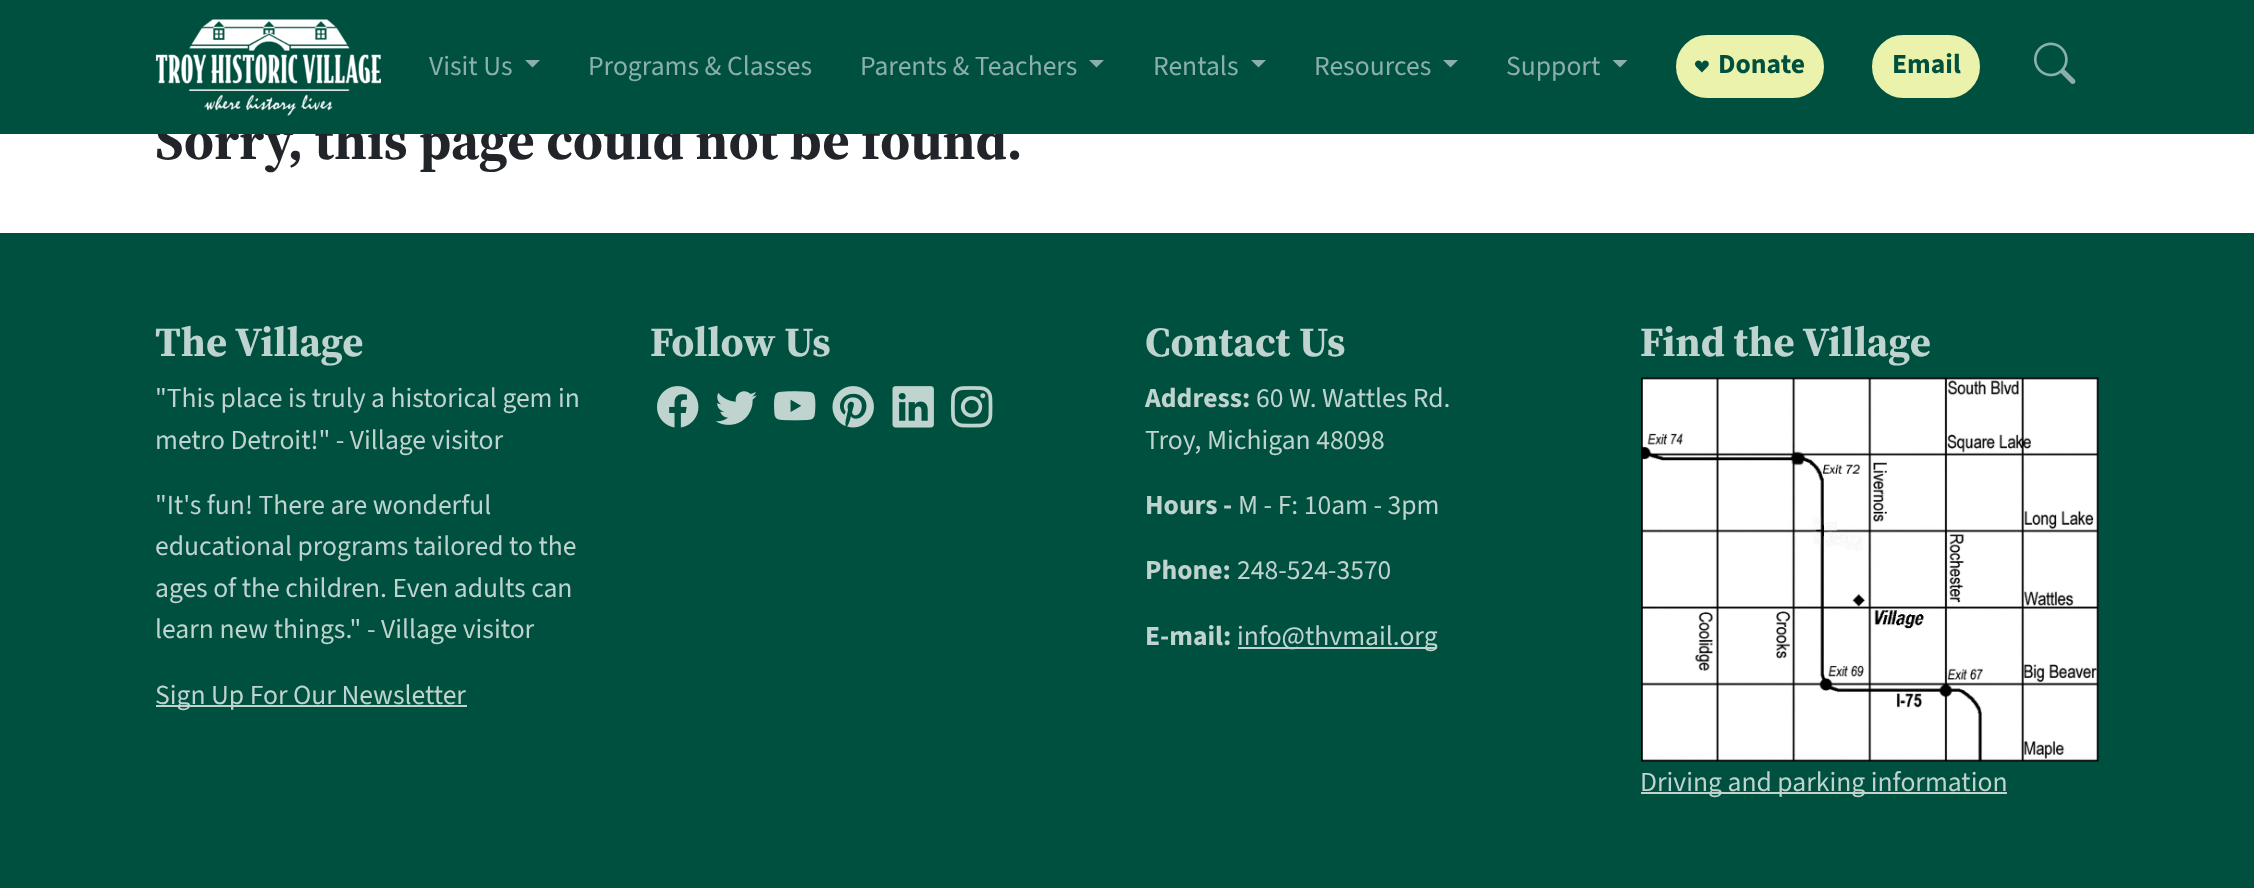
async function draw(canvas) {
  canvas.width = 2254;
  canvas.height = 888;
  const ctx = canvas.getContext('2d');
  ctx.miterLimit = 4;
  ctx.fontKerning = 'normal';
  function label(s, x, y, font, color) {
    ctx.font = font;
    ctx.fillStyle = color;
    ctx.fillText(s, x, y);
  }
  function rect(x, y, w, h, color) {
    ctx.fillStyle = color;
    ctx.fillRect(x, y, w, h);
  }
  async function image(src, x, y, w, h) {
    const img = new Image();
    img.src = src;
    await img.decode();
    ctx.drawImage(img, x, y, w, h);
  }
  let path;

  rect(0, 0, 2254, 888, '#fff');
  label('Sorry, this page could not be found.', 155, 159, 'bold 55.25px "Source Serif 4"', '#212529');
  rect(0, 0, 2254, 134, '#005040');
  await image('assets/img1.png', 155, 19, 226, 97);
  label('Visit Us', 429, 75, '27.6px "Source Sans 3"', '#8cb0a9');
  path = new Path2D('M525 60H540L532.5 67.5Z');
  ctx.fill(path);
  label('Programs & Classes', 588, 75, '27.6px "Source Sans 3"', '#8cb0a9');
  label('Parents & Teachers', 860, 75, '27.6px "Source Sans 3"', '#8cb0a9');
  path = new Path2D('M1089 60H1104L1096.5 67.5Z');
  ctx.fill(path);
  label('Rentals', 1153, 75, '27.6px "Source Sans 3"', '#8cb0a9');
  path = new Path2D('M1251 60H1266L1258.5 67.5Z');
  ctx.fill(path);
  label('Resources', 1314, 75, '27.6px "Source Sans 3"', '#8cb0a9');
  path = new Path2D('M1443 60H1458L1450.5 67.5Z');
  ctx.fill(path);
  label('Support', 1506, 75, '27.6px "Source Sans 3"', '#8cb0a9');
  path = new Path2D('M1612.5 60H1627.5L1620 67.5Z');
  ctx.fill(path);
  ctx.fillStyle = '#eaf2ac';
  ctx.beginPath();
  ctx.roundRect(1677, 36, 146, 61, 30.5);
  ctx.fill();
  ctx.strokeStyle = '#eaf2ac';
  ctx.lineWidth = 2;
  ctx.stroke();
  await image('assets/img2.png', 1695, 60, 14, 13);
  label('Donate', 1718, 73, 'bold 27.6px "Source Sans 3"', '#005040');
  ctx.fillStyle = '#eaf2ac';
  ctx.beginPath();
  ctx.roundRect(1873, 36, 106, 61, 30.5);
  ctx.fill();
  ctx.stroke();
  label('Email', 1892, 73, 'bold 27.6px "Source Sans 3"', '#005040');
  await image('assets/img3.png', 2034, 42, 42, 42);
  rect(0, 233, 2254, 655, '#005040');
  label('The Village', 155, 356, 'bold 41.5px "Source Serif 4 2"', '#bfd3cf');
  label('"This place is truly a historical gem in', 155, 407, '27.6px "Source Sans 3"', '#bfd3cf');
  label('metro Detroit!" - Village visitor', 155, 449, '27.6px "Source Sans 3"', '#bfd3cf');
  label('"It\'s fun! There are wonderful', 155, 514, '27.6px "Source Sans 3"', '#bfd3cf');
  label('educational programs tailored to the', 155, 555, '27.6px "Source Sans 3"', '#bfd3cf');
  label('ages of the children. Even adults can', 155, 597, '27.6px "Source Sans 3"', '#bfd3cf');
  label('learn new things." - Village visitor', 155, 638, '27.6px "Source Sans 3"', '#bfd3cf');
  rect(156, 705, 311, 2, '#bfd3cf');
  label('Sign Up For Our Newsletter', 155, 704, '27.6px "Source Sans 3"', '#bfd3cf');
  label('Follow Us', 650, 356, 'bold 41.5px "Source Serif 4 2"', '#bfd3cf');
  await image('assets/img4.png', 657, 386, 42, 42);
  await image('assets/img5.png', 715, 391, 42, 34);
  await image('assets/img6.png', 774, 391, 42, 30);
  await image('assets/img7.png', 832, 386, 42, 42);
  await image('assets/img8.png', 892, 386, 42, 42);
  await image('assets/img9.png', 951, 386, 42, 42);
  label('Contact Us', 1145, 356, 'bold 41.5px "Source Serif 4 2"', '#bfd3cf');
  label('Address:', 1145, 407, 'bold 27.6px "Source Sans 3"', '#bfd3cf');
  label('60 W. Wattles Rd.', 1256, 407, '27.6px "Source Sans 3"', '#bfd3cf');
  label('Troy, Michigan 48098', 1145, 449, '27.6px "Source Sans 3"', '#bfd3cf');
  label('Hours -', 1145, 514, 'bold 27.6px "Source Sans 3"', '#bfd3cf');
  label('M - F: 10am - 3pm', 1238, 514, '27.6px "Source Sans 3"', '#bfd3cf');
  label('Phone:', 1145, 579, 'bold 27.6px "Source Sans 3"', '#bfd3cf');
  label('248-524-3570', 1237, 579, '27.6px "Source Sans 3"', '#bfd3cf');
  label('E-mail:', 1145, 645, 'bold 27.6px "Source Sans 3"', '#bfd3cf');
  rect(1238, 647, 199, 2, '#bfd3cf');
  label('info@thvmail.org', 1237, 645, '27.6px "Source Sans 3"', '#bfd3cf');
  label('Find the Village', 1640, 356, 'bold 41.5px "Source Serif 4 2"', '#bfd3cf');
  await image('assets/img10.png', 1641, 377, 458, 385);
  rect(1641, 792, 366, 2, '#bfd3cf');
  label('Driving and parking information', 1640, 791, '27.6px "Source Sans 3"', '#bfd3cf');
}

draw(document.querySelector('canvas'));
